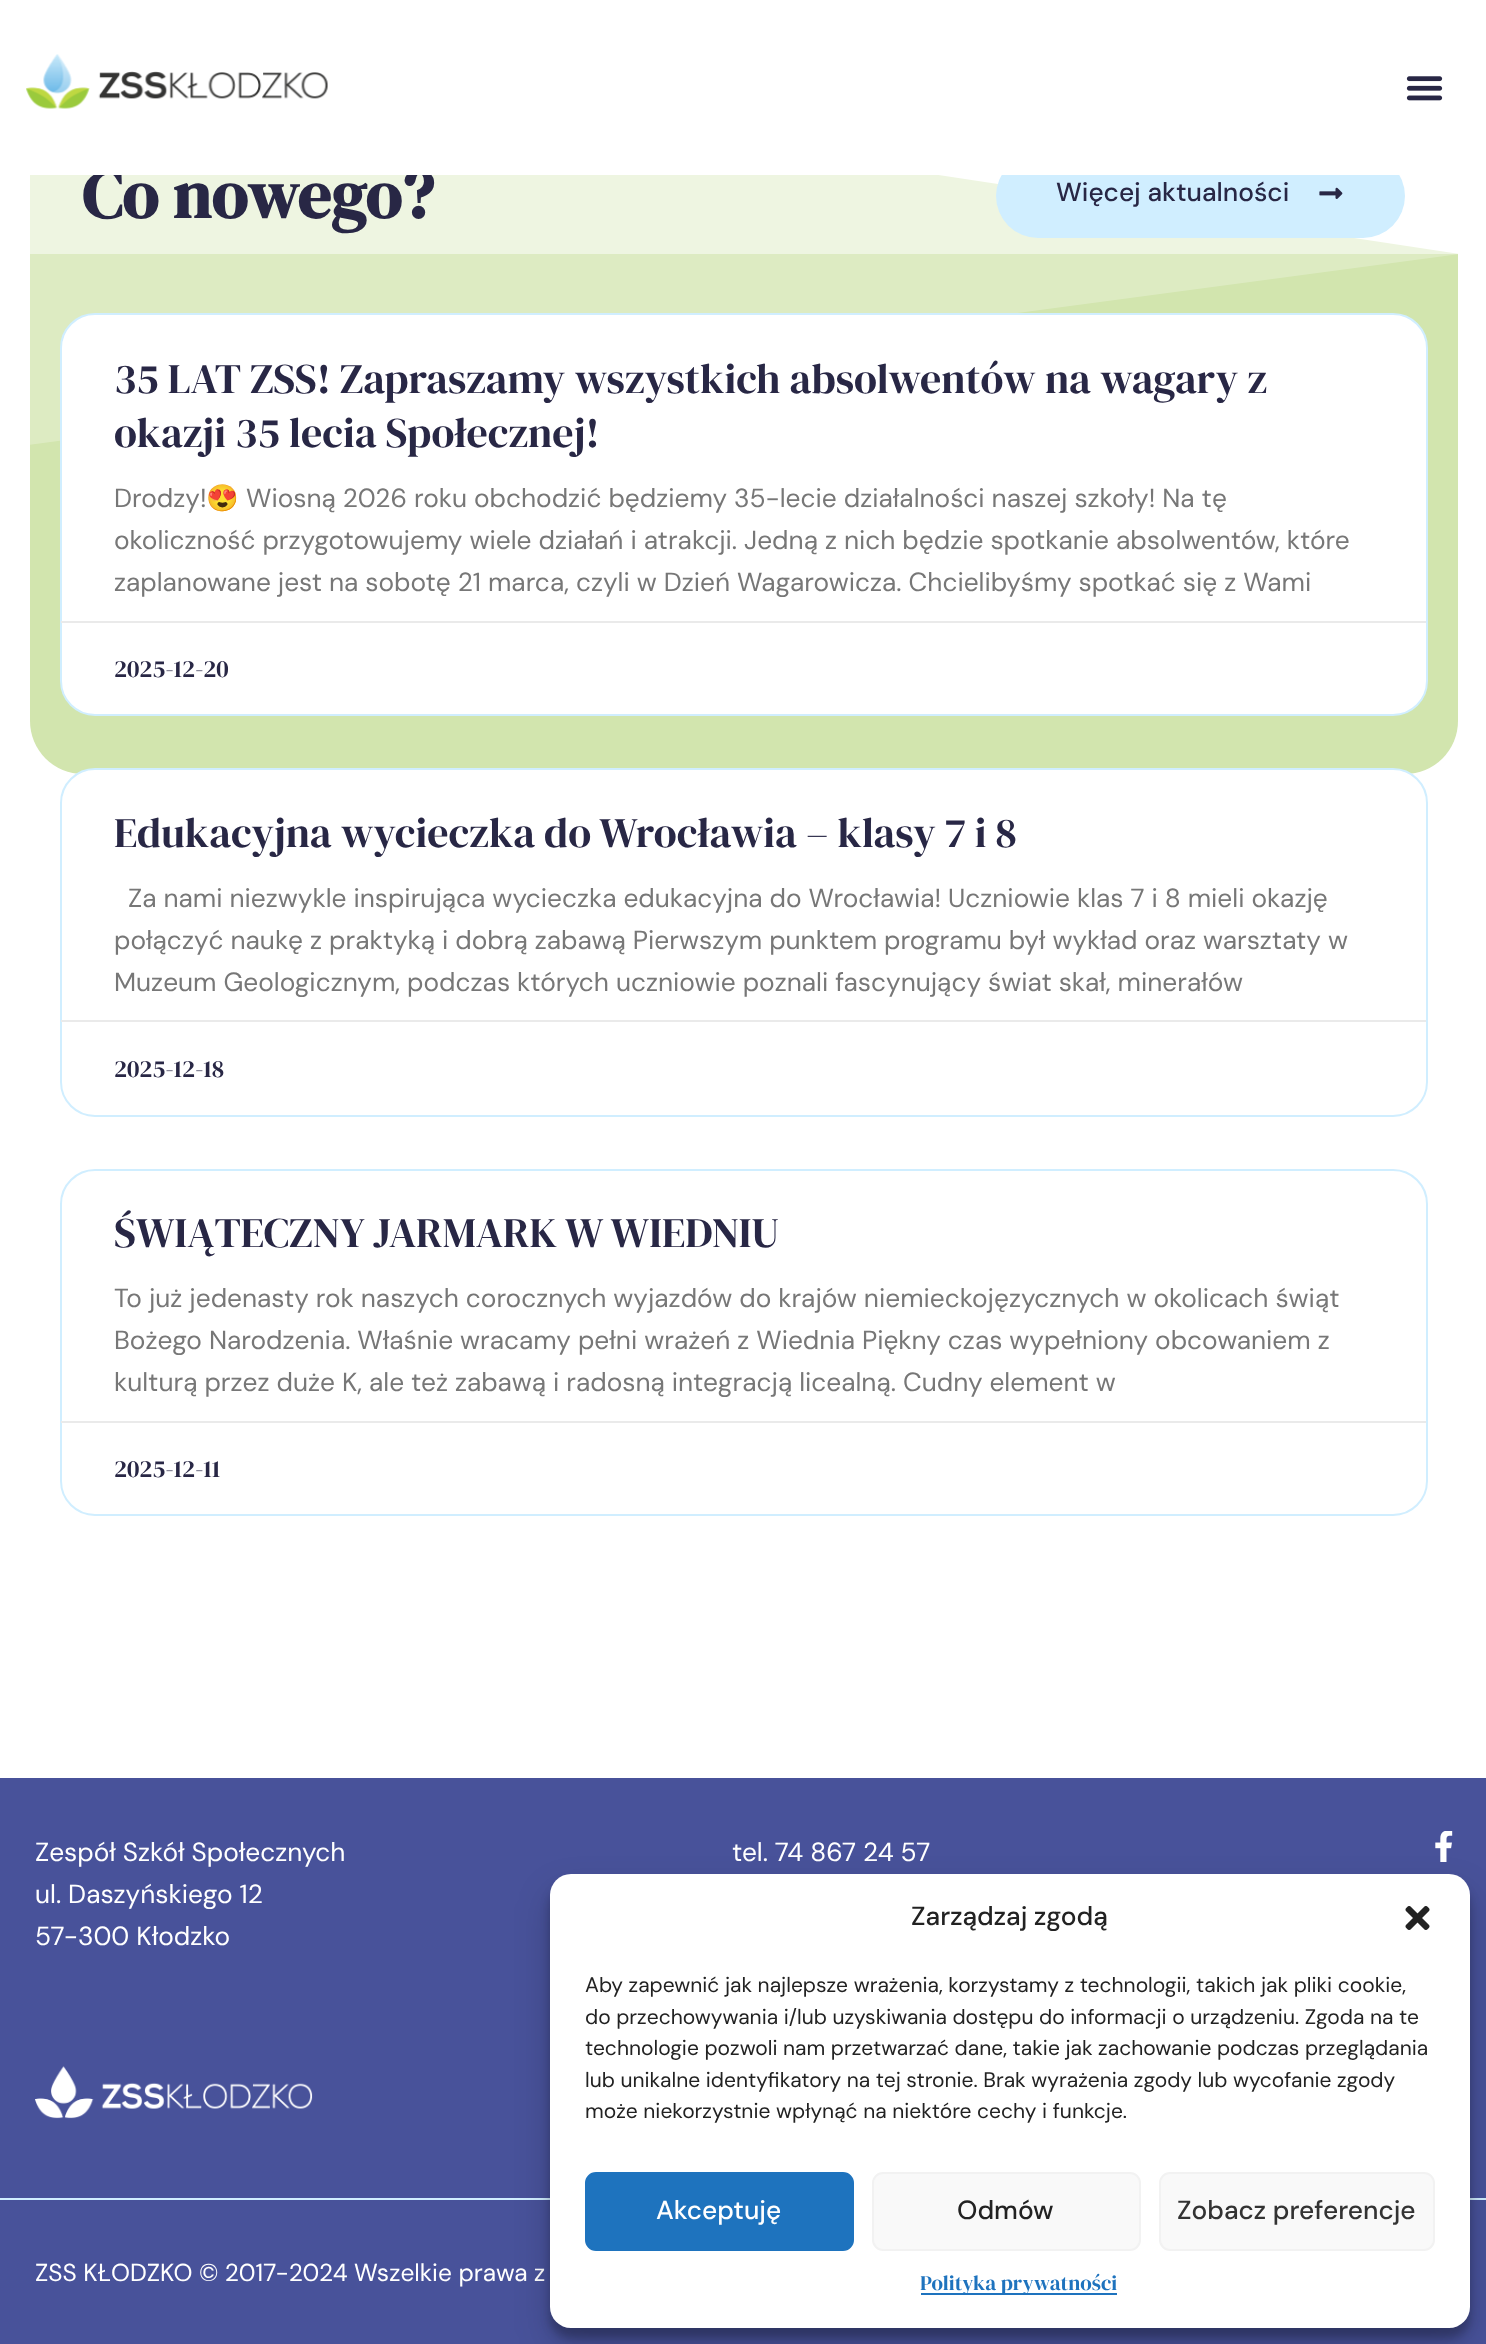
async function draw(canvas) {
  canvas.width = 1486;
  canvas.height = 2344;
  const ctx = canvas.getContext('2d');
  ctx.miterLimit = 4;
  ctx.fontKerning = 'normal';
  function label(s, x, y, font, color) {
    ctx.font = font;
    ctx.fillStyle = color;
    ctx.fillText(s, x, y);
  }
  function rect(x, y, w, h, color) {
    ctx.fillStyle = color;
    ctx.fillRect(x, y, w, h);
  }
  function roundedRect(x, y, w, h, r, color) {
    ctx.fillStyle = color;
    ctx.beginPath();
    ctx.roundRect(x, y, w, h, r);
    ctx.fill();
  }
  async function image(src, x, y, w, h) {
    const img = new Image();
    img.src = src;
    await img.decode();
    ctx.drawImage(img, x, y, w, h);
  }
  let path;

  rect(0, 0, 1486, 2344, '#fff');
  roundedRect(30, 39, 1428, 735, 53, '#d2e5ae');
  ctx.save();
  ctx.beginPath();
  ctx.rect(30, 37, 1428, 411);
  ctx.clip();
  ctx.fillStyle = '#fff';
  path = new Path2D('M29 37H1459V254Z');
  ctx.fill(path);
  ctx.restore();
  rect(30, 175, 1428, 79, '#ffffff80');
  ctx.save();
  ctx.beginPath();
  ctx.rect(30, 37, 1428, 411);
  ctx.clip();
  ctx.fillStyle = '#ffffff40';
  path = new Path2D('M1459 37H29V445L1459 254Z');
  ctx.fill(path);
  ctx.restore();
  label('Co nowego?', 82, 218, 'bold 66.5px DM Serif Display', '#282745');
  roundedRect(996, 154, 409, 84, 42, '#d0eeff');
  rect(30, 42, 1370, 133, '#fff');
  await image('assets/img1.png', 26, 54, 302, 55);
  await image('assets/img2.png', 1406, 76, 37, 25);
  label('Więcej aktualności', 1056, 201, '500 26.25px DM Sans', '#282745');
  await image('assets/img3.png', 1319, 187, 24, 12);
  ctx.fillStyle = '#fff';
  ctx.beginPath();
  ctx.roundRect(61, 314, 1366, 401, 34);
  ctx.fill();
  ctx.strokeStyle = '#d0eeff';
  ctx.lineWidth = 2;
  ctx.stroke();
  label('35 LAT ZSS! Zapraszamy wszystkich absolwentów na wagary z', 114, 393, '42px DM Serif Display', '#282745');
  label('okazji 35 lecia Społecznej!', 114, 447, '42px DM Serif Display', '#282745');
  label('Drodzy!', 114, 507, '26.25px DM Sans', '#777');
  label('😍', 206, 507, '26.25px Noto Color Emoji', '#777');
  label('Wiosną 2026 roku obchodzić będziemy 35-lecie działalności naszej szkoły! Na tę', 246, 507, '26.25px DM Sans', '#777');
  label('okoliczność przygotowujemy wiele działań i atrakcji. Jedną z nich będzie spotkanie absolwentów, które', 114, 549, '26.25px DM Sans', '#777');
  label('zaplanowane jest na sobotę 21 marca, czyli w Dzień Wagarowicza. Chcielibyśmy spotkać się z Wami', 114, 591, '26.25px DM Sans', '#777');
  rect(61, 621, 1365, 2, '#eaeaea');
  label('2025-12-20', 114, 677, '24.5px DM Serif Display', '#282745');
  ctx.fillStyle = '#fff';
  ctx.beginPath();
  ctx.roundRect(61, 769, 1366, 347, 34);
  ctx.fill();
  ctx.stroke();
  label('Edukacyjna wycieczka do Wrocławia – klasy 7 i 8', 114, 847, '42px DM Serif Display', '#282745');
  label('Za nami niezwykle inspirująca wycieczka edukacyjna do Wrocławia! Uczniowie klas 7 i 8 mieli okazję', 128, 907, '26.25px DM Sans', '#777');
  label('połączyć naukę z praktyką i dobrą zabawą Pierwszym punktem programu był wykład oraz warsztaty w', 114, 949, '26.25px DM Sans', '#777');
  label('Muzeum Geologicznym, podczas których uczniowie poznali fascynujący świat skał, minerałów', 114, 991, '26.25px DM Sans', '#777');
  rect(61, 1020, 1365, 2, '#eaeaea');
  label('2025-12-18', 114, 1077, '24.5px DM Serif Display', '#282745');
  ctx.beginPath();
  ctx.roundRect(61, 1170, 1366, 345, 34);
  ctx.stroke();
  label('ŚWIĄTECZNY JARMARK W WIEDNIU', 114, 1247, '42px DM Serif Display', '#282745');
  label('To już jedenasty rok naszych corocznych wyjazdów do krajów niemieckojęzycznych w okolicach świąt', 114, 1307, '26.25px DM Sans', '#777');
  label('Bożego Narodzenia. Właśnie wracamy pełni wrażeń z Wiednia Piękny czas wypełniony obcowaniem z', 114, 1349, '26.25px DM Sans', '#777');
  label('kulturą przez duże K, ale też zabawą i radosną integracją licealną. Cudny element w', 114, 1391, '26.25px DM Sans', '#777');
  rect(61, 1421, 1365, 2, '#eaeaea');
  label('2025-12-11', 114, 1477, '24.5px DM Serif Display', '#282745');
  rect(0, 1778, 1486, 420, '#48529a');
  label('Zespół Szkół Społecznych', 35, 1861, '26.25px DM Sans', '#fff');
  label('ul. Daszyńskiego 12', 35, 1903, '26.25px DM Sans', '#fff');
  label('57-300 Kłodzko', 35, 1945, '26.25px DM Sans', '#fff');
  label('tel. 74 867 24 57', 732, 1861, '26.25px DM Sans', '#fff');
  await image('assets/img4.png', 1435, 1831, 18, 31);
  await image('assets/img5.png', 35, 2066, 278, 53);
  rect(0, 2200, 1486, 144, '#48529a');
  rect(0, 2198, 1486, 2, '#d0eeff');
  label('ZSS KŁODZKO © 2017-2024 Wszelkie prawa z', 35, 2281, '24.5px DM Sans', '#fff');
  ctx.fillStyle = '#0000003b';
  ctx.filter = 'blur(5px)';
  ctx.beginPath();
  ctx.roundRect(550, 1885, 920, 453, 21);
  ctx.fill();
  ctx.filter = 'none';
  ctx.fillStyle = '#00000030';
  ctx.filter = 'blur(17.5px)';
  ctx.beginPath();
  ctx.roundRect(550, 1892, 920, 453, 21);
  ctx.fill();
  ctx.filter = 'none';
  roundedRect(550, 1874, 920, 454, 21, '#fff');
  label('Zarządzaj zgodą', 911, 1925, '500 26.25px DM Sans', '#222');
  await image('assets/img6.png', 1405, 1906, 25, 24);
  label('Aby zapewnić jak najlepsze wrażenia, korzystamy z technologii, takich jak pliki cookie,', 585, 1992, '21px DM Sans', '#222');
  label('do przechowywania i/lub uzyskiwania dostępu do informacji o urządzeniu. Zgoda na te', 585, 2024, '21px DM Sans', '#222');
  label('technologie pozwoli nam przetwarzać dane, takie jak zachowanie podczas przeglądania', 585, 2055, '21px DM Sans', '#222');
  label('lub unikalne identyfikatory na tej stronie. Brak wyrażenia zgody lub wycofanie zgody', 585, 2087, '21px DM Sans', '#222');
  label('może niekorzystnie wpłynąć na niektóre cechy i funkcje.', 585, 2118, '21px DM Sans', '#222');
  ctx.fillStyle = '#1e73be';
  ctx.beginPath();
  ctx.roundRect(586, 2173, 267, 77, 10);
  ctx.fill();
  ctx.strokeStyle = '#1e73be';
  ctx.stroke();
  label('Akceptuję', 656, 2219, '500 26.25px DM Sans', '#fff');
  ctx.fillStyle = '#f9f9f9';
  ctx.beginPath();
  ctx.roundRect(873, 2173, 267, 77, 10);
  ctx.fill();
  ctx.strokeStyle = '#f2f2f2';
  ctx.stroke();
  label('Odmów', 957, 2219, '500 26.25px DM Sans', '#222');
  ctx.fillStyle = '#f9f9f9';
  ctx.beginPath();
  ctx.roundRect(1160, 2173, 274, 77, 10);
  ctx.fill();
  ctx.stroke();
  label('Zobacz preferencje', 1177, 2219, '500 26.25px DM Sans', '#333');
  rect(921, 2293, 196, 2, '#1e73be');
  label('Polityka prywatności', 920, 2290, '21px DM Serif Display', '#1e73be');
}

draw(document.querySelector('canvas'));
